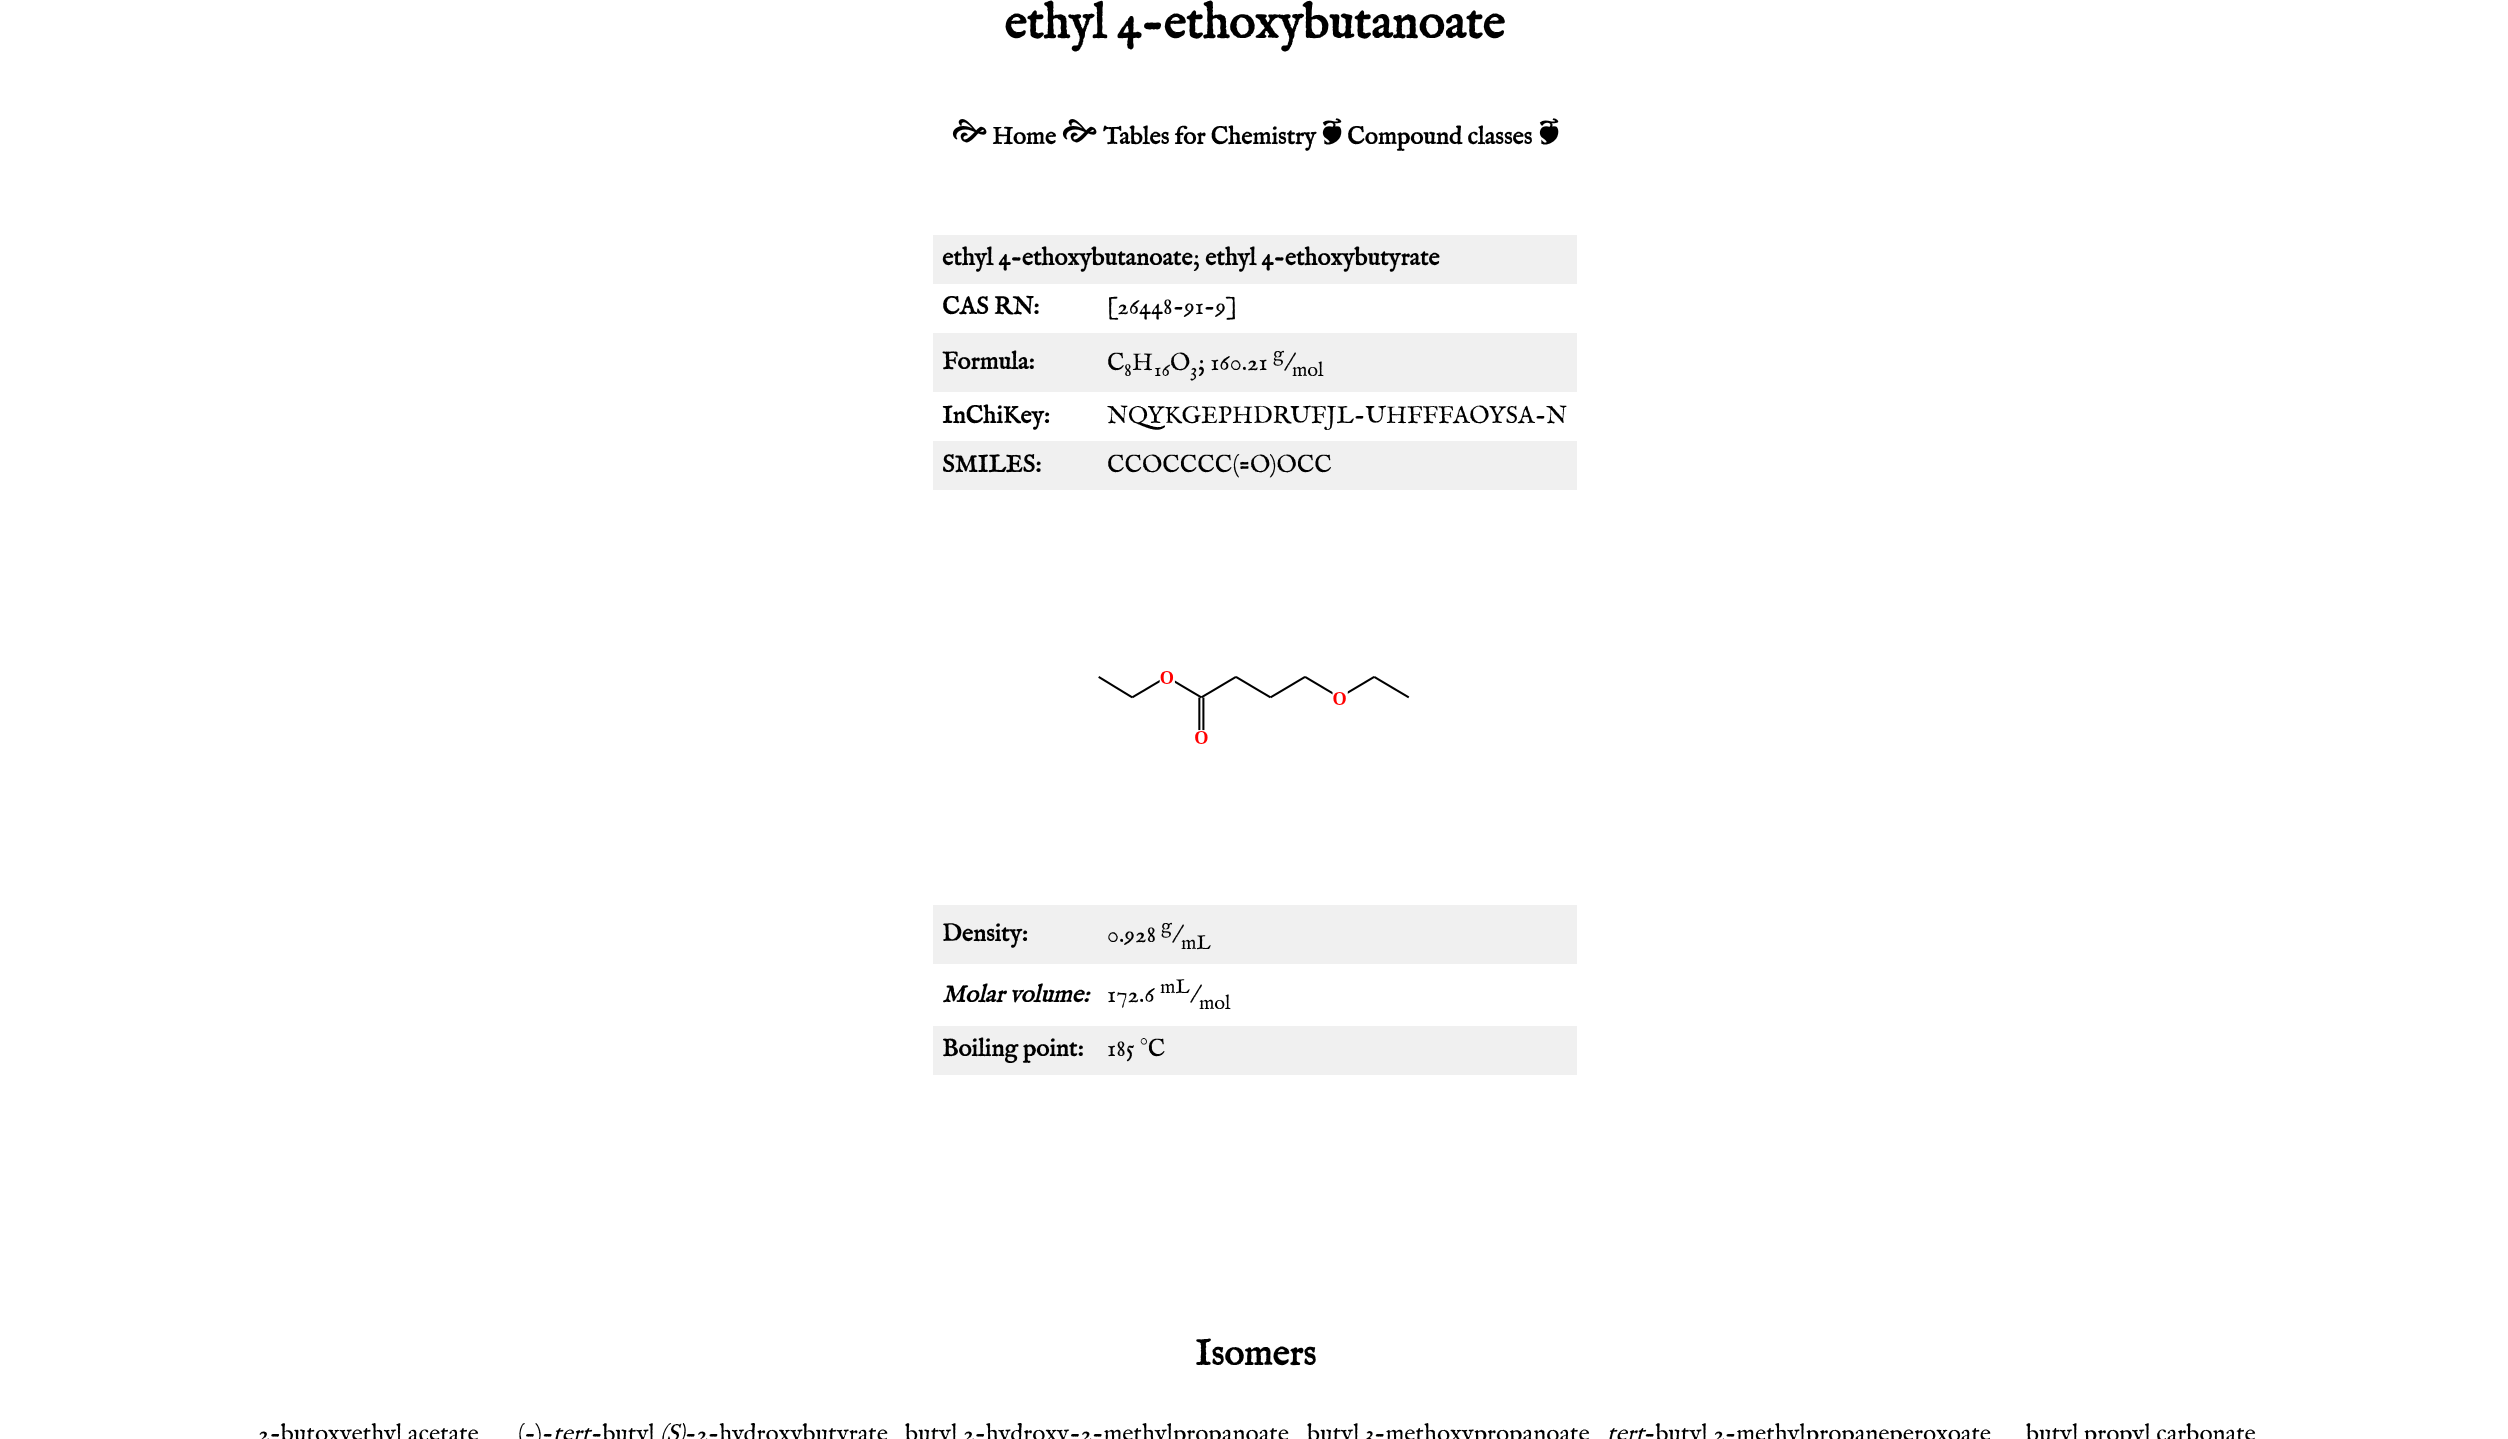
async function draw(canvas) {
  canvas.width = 2508;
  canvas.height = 1439;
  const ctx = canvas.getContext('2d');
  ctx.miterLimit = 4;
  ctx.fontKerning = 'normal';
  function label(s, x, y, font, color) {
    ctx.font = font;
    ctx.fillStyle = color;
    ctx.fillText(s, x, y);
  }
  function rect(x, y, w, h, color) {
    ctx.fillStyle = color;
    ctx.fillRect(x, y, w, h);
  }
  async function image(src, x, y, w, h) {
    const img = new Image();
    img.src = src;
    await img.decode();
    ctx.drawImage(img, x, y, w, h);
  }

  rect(0, 0, 2508, 1439, '#fff');
  label('ethyl 4-ethoxybutanoate', 1004, 38, 'bold 49px IM FELL English', '#000');
  label('🙚', 951, 144, 'bold 37px "Noto Sans Symbols 2"', '#000');
  label('Home', 992, 144, 'bold 24.5px IM FELL English', '#000');
  label('🙚', 1061, 144, 'bold 37px "Noto Sans Symbols 2"', '#000');
  label('Tables for Chemistry', 1103, 144, 'bold 24.5px IM FELL English', '#000');
  label('🙘', 1321, 144, 'bold 37px Bona Nova', '#000');
  label('Compound classes', 1347, 144, 'bold 24.5px IM FELL English', '#000');
  label('🙘', 1538, 144, 'bold 37px Bona Nova', '#000');
  rect(933, 235, 644, 49, '#f0f0f0');
  label('ethyl 4-ethoxybutanoate', 942, 265, 'bold 24.5px IM FELL English', '#000');
  label(';', 1193, 265, '24.5px IM FELL English', '#000');
  label('ethyl 4-ethoxybutyrate', 1205, 265, 'bold 24.5px IM FELL English', '#000');
  label('CAS RN:', 942, 314, 'bold 24.5px IM FELL English', '#000');
  label('[26448-91-9]', 1107, 314, '24.5px IM FELL English', '#000');
  rect(933, 333, 644, 59, '#f0f0f0');
  label('Formula:', 942, 369, 'bold 24.5px IM FELL English', '#000');
  label('C', 1107, 370, '24.5px IM FELL English', '#000');
  label('8', 1124, 376, '20px IM FELL English', '#000');
  label('H', 1132, 370, '24.5px IM FELL English', '#000');
  label('16', 1154, 376, '20px IM FELL English', '#000');
  label('O', 1170, 370, '24.5px IM FELL English', '#000');
  label('3', 1190, 376, '20px IM FELL English', '#000');
  label('; 160.21', 1198, 370, '24.5px IM FELL English', '#000');
  label('g', 1273, 360, '20px IM FELL English', '#000');
  label('/', 1284, 370, '24.5px IM FELL English', '#000');
  label('mol', 1292, 376, '20px IM FELL English', '#000');
  label('InChiKey:', 942, 423, 'bold 24.5px IM FELL English', '#000');
  label('NQYKGEPHDRUFJL-UHFFFAOYSA-N', 1107, 423, '24.5px IM FELL English', '#000');
  rect(933, 441, 644, 49, '#f0f0f0');
  label('SMILES:', 942, 472, 'bold 24.5px IM FELL English', '#000');
  label('CCOCCCC(=O)OCC', 1107, 472, '24.5px IM FELL English', '#000');
  await image('assets/img1.png', 1098, 671, 312, 73);
  rect(933, 905, 644, 59, '#f0f0f0');
  label('Density:', 942, 941, 'bold 24.5px IM FELL English', '#000');
  label('0.928', 1107, 942, '24.5px IM FELL English', '#000');
  label('g', 1161, 932, '20px IM FELL English', '#000');
  label('/', 1172, 942, '24.5px IM FELL English', '#000');
  label('mL', 1181, 949, '20px IM FELL English', '#000');
  label('Molar volume:', 942, 1002, 'italic bold 24.5px IM FELL English', '#000');
  label('172.6', 1107, 1002, '24.5px IM FELL English', '#000');
  label('mL', 1160, 993, '20px IM FELL English', '#000');
  label('/', 1190, 1002, '24.5px IM FELL English', '#000');
  label('mol', 1199, 1009, '20px IM FELL English', '#000');
  rect(933, 1026, 644, 49, '#f0f0f0');
  label('Boiling point:', 942, 1056, 'bold 24.5px IM FELL English', '#000');
  label('185 °C', 1107, 1056, '24.5px IM FELL English', '#000');
  label('Isomers', 1195, 1365, 'bold 37px IM FELL English', '#000');
  label('2-butoxyethyl acetate', 258, 1441, '24.5px IM FELL English', '#000');
  label('(-)-', 518, 1441, '24.5px IM FELL English', '#000');
  label('tert', 553, 1441, 'italic 24.5px IM FELL English', '#000');
  label('-butyl', 591, 1441, '24.5px IM FELL English', '#000');
  label('(S)', 660, 1441, 'italic 24.5px IM FELL English', '#000');
  label('-2-hydroxybutyrate', 685, 1441, '24.5px IM FELL English', '#000');
  label('butyl 2-hydroxy-2-methylpropanoate', 905, 1441, '24.5px IM FELL English', '#000');
  label('butyl 3-methoxypropanoate', 1307, 1441, '24.5px IM FELL English', '#000');
  label('tert', 1607, 1441, 'italic 24.5px IM FELL English', '#000');
  label('-butyl 2-methylpropaneperoxoate', 1644, 1441, '24.5px IM FELL English', '#000');
  label('butyl propyl carbonate', 2026, 1441, '24.5px IM FELL English', '#000');
}

draw(document.querySelector('canvas'));
